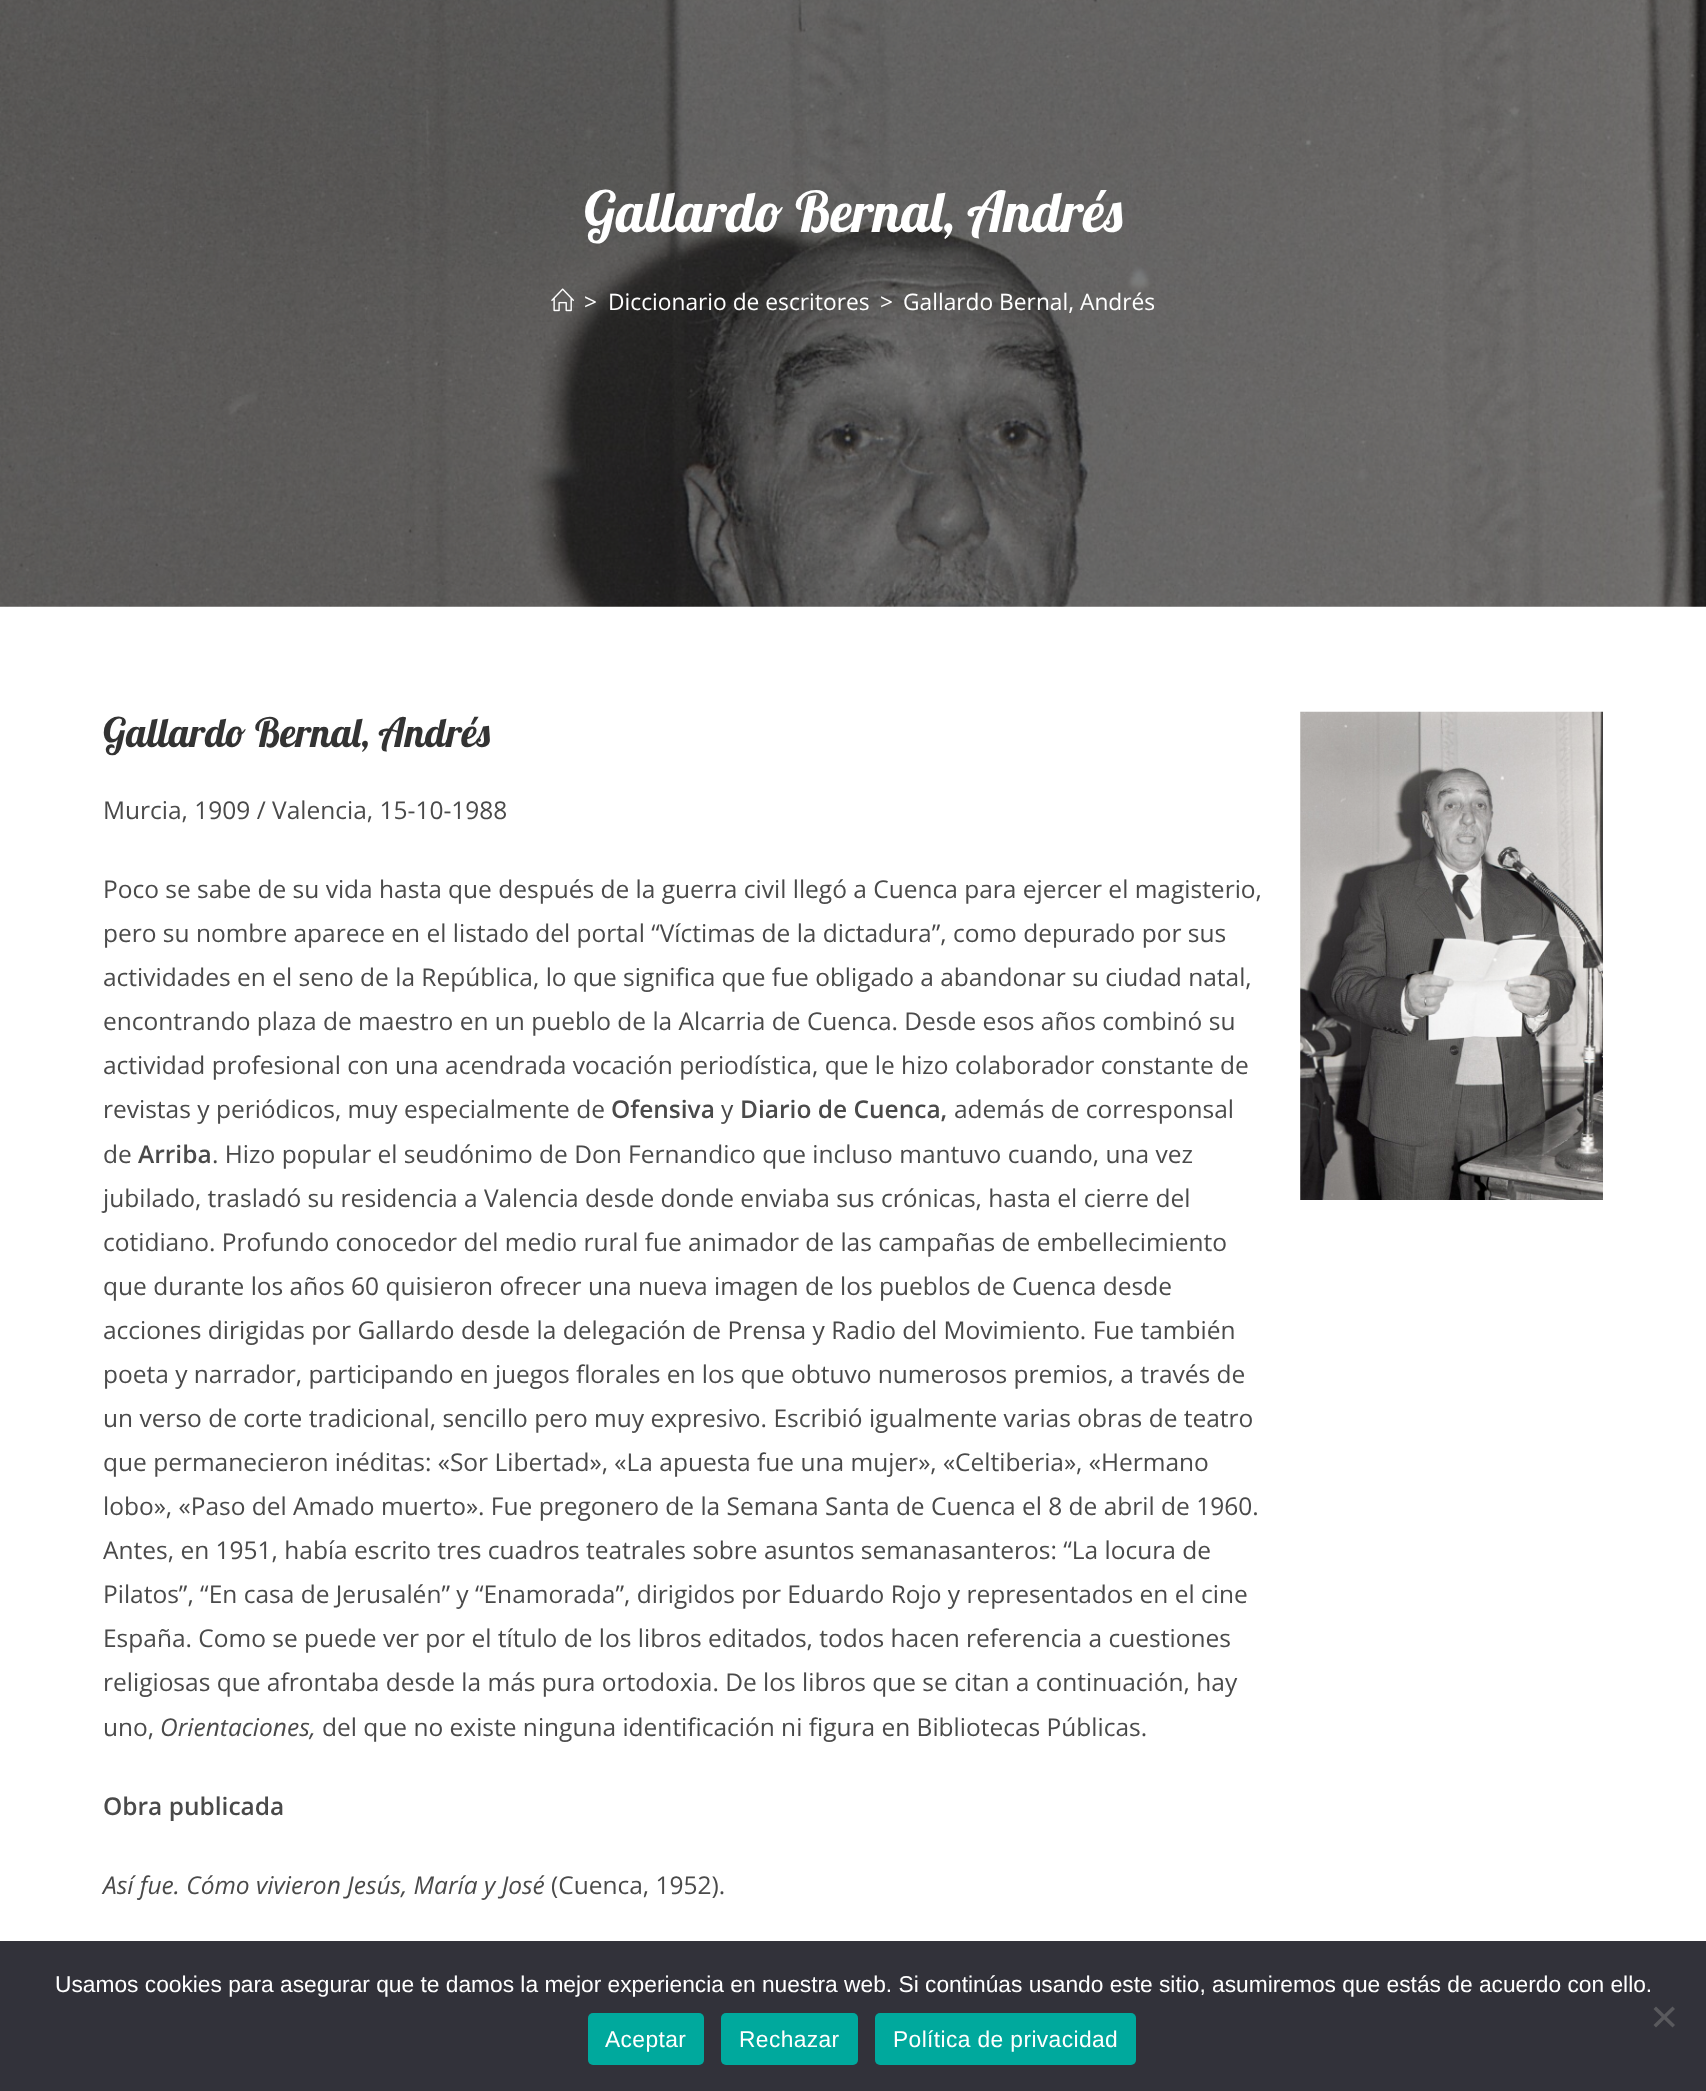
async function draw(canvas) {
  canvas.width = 1706;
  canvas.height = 2091;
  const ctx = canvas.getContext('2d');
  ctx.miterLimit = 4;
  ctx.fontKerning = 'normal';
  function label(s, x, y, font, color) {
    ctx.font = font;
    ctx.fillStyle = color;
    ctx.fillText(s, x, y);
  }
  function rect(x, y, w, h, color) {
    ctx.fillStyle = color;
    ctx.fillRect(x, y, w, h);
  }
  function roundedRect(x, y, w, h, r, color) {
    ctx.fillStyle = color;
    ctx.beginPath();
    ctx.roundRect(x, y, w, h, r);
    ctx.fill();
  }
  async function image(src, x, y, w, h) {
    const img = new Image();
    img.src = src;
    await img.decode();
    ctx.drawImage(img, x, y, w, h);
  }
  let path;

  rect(0, 0, 1706, 2091, '#fff');
  await image('assets/img1.png', 0, 0, 1706, 607);
  label('Gallardo Bernal, Andrés', 584, 232, '56px Lobster', '#fff');
  await image('assets/img2.png', 551, 288, 23, 24);
  label('>', 584, 310, '22.75px Open Sans', '#fff');
  label('Diccionario de escritores', 608, 310, '22.75px Open Sans', '#fff');
  label('>', 880, 310, '22.75px Open Sans', '#fff');
  label('Gallardo Bernal, Andrés', 903, 310, '22.75px Open Sans', '#fff');
  label('Gallardo Bernal, Andrés', 103, 747, '40.25px Lobster', '#333');
  label('Murcia, 1909 / Valencia, 15-10-1988', 103, 819, '24.5px Open Sans', '#4a4a4a');
  label('Poco se sabe de su vida hasta que después de la guerra civil llegó a Cuenca para ejercer el magisterio,', 103, 898, '24.5px Open Sans', '#4a4a4a');
  label('pero su nombre aparece en el listado del portal “Víctimas de la dictadura”, como depurado por sus', 103, 942, '24.5px Open Sans', '#4a4a4a');
  label('actividades en el seno de la República, lo que significa que fue obligado a abandonar su ciudad natal,', 103, 986, '24.5px Open Sans', '#4a4a4a');
  label('encontrando plaza de maestro en un pueblo de la Alcarria de Cuenca. Desde esos años combinó su', 103, 1030, '24.5px Open Sans', '#4a4a4a');
  label('actividad profesional con una acendrada vocación periodística, que le hizo colaborador constante de', 103, 1074, '24.5px Open Sans', '#4a4a4a');
  label('revistas y periódicos, muy especialmente de', 103, 1118, '24.5px Open Sans', '#4a4a4a');
  label('Ofensiva', 611, 1118, '600 24.5px Open Sans', '#4a4a4a');
  label('y', 721, 1118, '24.5px Open Sans', '#4a4a4a');
  label('Diario de Cuenca,', 740, 1118, '600 24.5px Open Sans', '#4a4a4a');
  label('además de corresponsal', 954, 1118, '24.5px Open Sans', '#4a4a4a');
  label('de', 103, 1163, '24.5px Open Sans', '#4a4a4a');
  label('Arriba', 138, 1163, '600 24.5px Open Sans', '#4a4a4a');
  label('. Hizo popular el seudónimo de Don Fernandico que incluso mantuvo cuando, una vez', 212, 1163, '24.5px Open Sans', '#4a4a4a');
  label('jubilado, trasladó su residencia a Valencia desde donde enviaba sus crónicas, hasta el cierre del', 103, 1207, '24.5px Open Sans', '#4a4a4a');
  label('cotidiano. Profundo conocedor del medio rural fue animador de las campañas de embellecimiento', 103, 1251, '24.5px Open Sans', '#4a4a4a');
  label('que durante los años 60 quisieron ofrecer una nueva imagen de los pueblos de Cuenca desde', 103, 1295, '24.5px Open Sans', '#4a4a4a');
  label('acciones dirigidas por Gallardo desde la delegación de Prensa y Radio del Movimiento. Fue también', 103, 1339, '24.5px Open Sans', '#4a4a4a');
  label('poeta y narrador, participando en juegos florales en los que obtuvo numerosos premios, a través de', 103, 1383, '24.5px Open Sans', '#4a4a4a');
  label('un verso de corte tradicional, sencillo pero muy expresivo. Escribió igualmente varias obras de teatro', 103, 1427, '24.5px Open Sans', '#4a4a4a');
  label('que permanecieron inéditas: «Sor Libertad», «La apuesta fue una mujer», «Celtiberia», «Hermano', 103, 1471, '24.5px Open Sans', '#4a4a4a');
  label('lobo», «Paso del Amado muerto». Fue pregonero de la Semana Santa de Cuenca el 8 de abril de 1960.', 103, 1515, '24.5px Open Sans', '#4a4a4a');
  label('Antes, en 1951, había escrito tres cuadros teatrales sobre asuntos semanasanteros: “La locura de', 103, 1559, '24.5px Open Sans', '#4a4a4a');
  label('Pilatos”, “En casa de Jerusalén” y “Enamorada”, dirigidos por Eduardo Rojo y representados en el cine', 103, 1603, '24.5px Open Sans', '#4a4a4a');
  label('España. Como se puede ver por el título de los libros editados, todos hacen referencia a cuestiones', 103, 1647, '24.5px Open Sans', '#4a4a4a');
  label('religiosas que afrontaba desde la más pura ortodoxia. De los libros que se citan a continuación, hay', 103, 1691, '24.5px Open Sans', '#4a4a4a');
  label('uno,', 103, 1736, '24.5px Open Sans', '#4a4a4a');
  label('Orientaciones,', 160, 1736, 'italic 24.5px Open Sans', '#4a4a4a');
  label('del que no existe ninguna identificación ni figura en Bibliotecas Públicas.', 322, 1736, '24.5px Open Sans', '#4a4a4a');
  label('Obra publicada', 103, 1815, '600 24.5px Open Sans', '#4a4a4a');
  label('Así fue. Cómo vivieron Jesús, María y José', 103, 1894, 'italic 24.5px Open Sans', '#4a4a4a');
  label('(Cuenca, 1952).', 551, 1894, '24.5px Open Sans', '#4a4a4a');
  await image('assets/img3.png', 1300, 711, 303, 489);
  rect(0, 1941, 1706, 150, '#32323a');
  label('Usamos cookies para asegurar que te damos la mejor experiencia en nuestra web. Si continúas usando este sitio, asumiremos que estás de acuerdo con ello.', 55, 1992, '22.75px Liberation Sans', '#fff');
  ctx.fillStyle = '#59595d';
  path = new Path2D('M1672.5 2006.5L1675 2009L1656 2027.5L1653.5 2025Z');
  ctx.fill(path);
  path = new Path2D('M1653.5 2009L1656 2006.5L1675 2025L1672.5 2027.5Z');
  ctx.fill(path);
  roundedRect(588, 2013, 116, 52, 5, '#00a99d');
  ctx.letterSpacing = '0.4px';
  label('Aceptar', 605, 2047, '22.75px Liberation Sans', '#fff');
  roundedRect(721, 2013, 137, 52, 5, '#00a99d');
  label('Rechazar', 739, 2047, '22.75px Liberation Sans', '#fff');
  roundedRect(875, 2013, 261, 52, 5, '#00a99d');
  label('Política de privacidad', 893, 2047, '22.75px Liberation Sans', '#fff');
}

draw(document.querySelector('canvas'));
